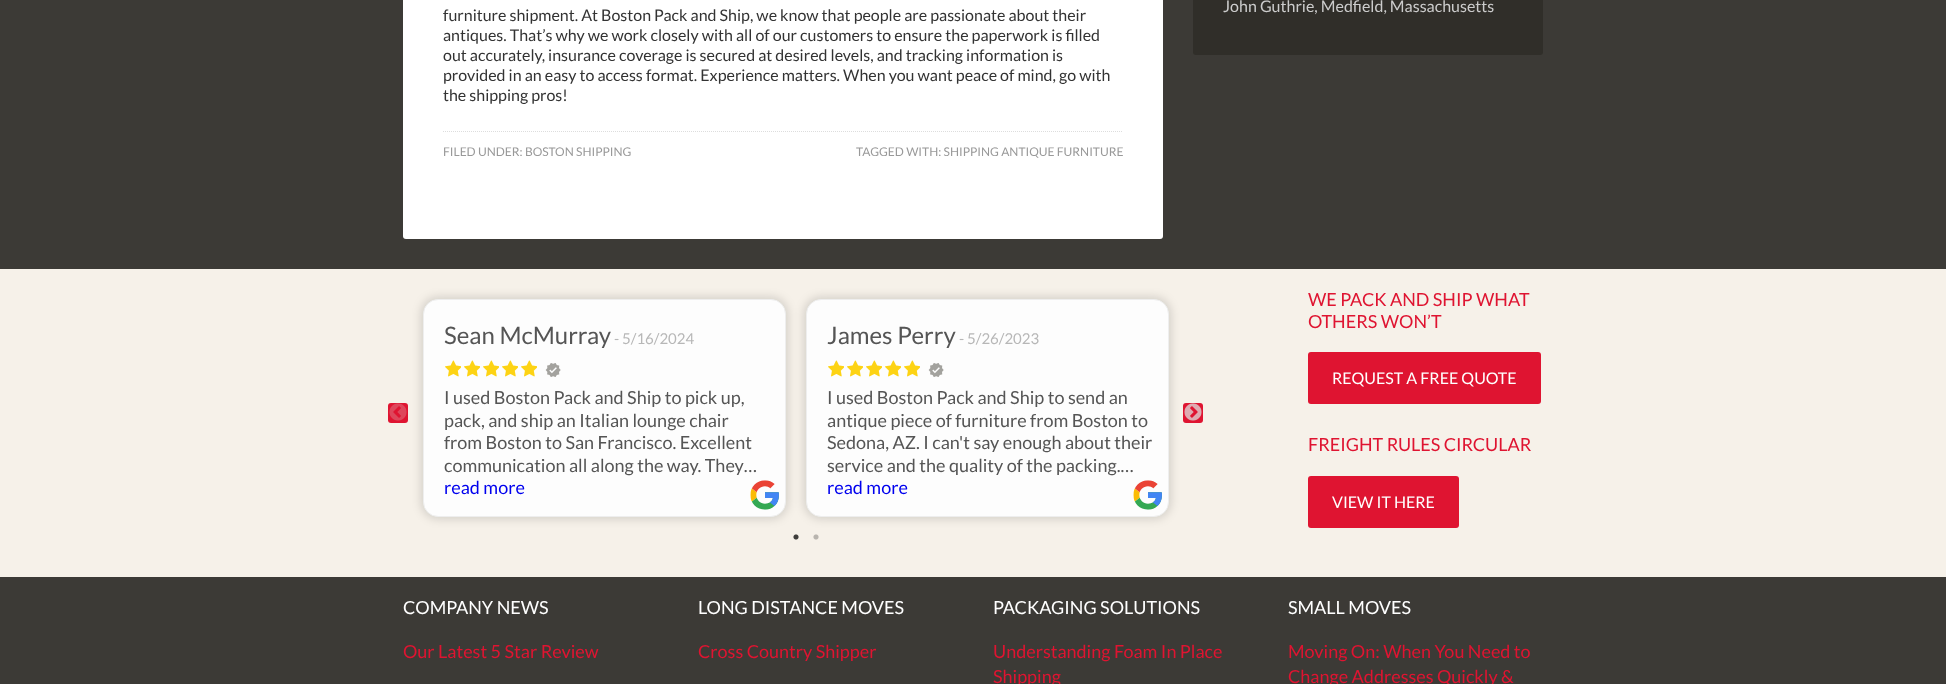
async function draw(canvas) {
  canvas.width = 1946;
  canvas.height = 684;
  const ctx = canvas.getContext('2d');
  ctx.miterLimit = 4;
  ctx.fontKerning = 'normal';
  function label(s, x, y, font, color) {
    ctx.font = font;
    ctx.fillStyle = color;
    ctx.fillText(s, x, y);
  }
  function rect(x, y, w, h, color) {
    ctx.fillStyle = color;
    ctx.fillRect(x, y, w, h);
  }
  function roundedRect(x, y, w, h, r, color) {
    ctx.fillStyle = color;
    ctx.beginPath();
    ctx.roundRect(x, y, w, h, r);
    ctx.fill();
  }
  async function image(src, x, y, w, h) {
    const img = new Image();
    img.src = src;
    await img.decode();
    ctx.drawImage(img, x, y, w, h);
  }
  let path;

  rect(0, 0, 1946, 684, '#3c3a36');
  roundedRect(1193, -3, 350, 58, 3, '#302e29');
  label('John Guthrie, Medfield, Massachusetts', 1223, 12, '16px Lato', '#ccc');
  roundedRect(403, -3, 760, 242, 3, '#fff');
  label('furniture shipment. At Boston Pack and Ship, we know that people are passionate about their', 443, 21, '16px Lato', '#333');
  label('antiques. That’s why we work closely with all of our customers to ensure the paperwork is filled', 443, 41, '16px Lato', '#333');
  label('out accurately, insurance coverage is secured at desired levels, and tracking information is', 443, 61, '16px Lato', '#333');
  label('provided in an easy to access format. Experience matters. When you want peace of mind, go with', 443, 81, '16px Lato', '#333');
  label('the shipping pros!', 443, 101, '16px Lato', '#333');
  path = new Path2D('M443 131.5H1123');
  ctx.strokeStyle = '#ddd';
  ctx.setLineDash([1, 1]);
  ctx.stroke(path);
  label('FILED UNDER: BOSTON SHIPPING', 443, 156, '12px Lato', '#999');
  label('TAGGED WITH: SHIPPING ANTIQUE FURNITURE', 856, 156, '12px Lato', '#999');
  rect(0, 269, 1946, 308, '#f6f1e9');
  ctx.fillStyle = '#00000024';
  ctx.filter = 'blur(5px)';
  ctx.beginPath();
  ctx.roundRect(421, 297, 367, 222, 17);
  ctx.fill();
  ctx.filter = 'none';
  roundedRect(388, 403, 20, 20, 3, '#df1431');
  await image('assets/img1.png', 389, 403, 18, 18);
  ctx.fillStyle = '#fdfdfd';
  ctx.beginPath();
  ctx.roundRect(423.5, 299.5, 362, 217, 14.5);
  ctx.fill();
  ctx.strokeStyle = '#eee';
  ctx.setLineDash([]);
  ctx.stroke();
  label('Sean McMurray', 444, 344, '24px Lato', '#555');
  label('- 5/16/2024', 614, 344, '15px Lato', '#b7b7b7');
  await image('assets/img2.png', 445, 360, 16, 17);
  await image('assets/img2.png', 464, 360, 16, 17);
  await image('assets/img2.png', 483, 360, 16, 17);
  await image('assets/img2.png', 502, 360, 16, 17);
  await image('assets/img2.png', 521, 360, 16, 17);
  await image('assets/img3.png', 545, 363, 16, 14);
  label('I used Boston Pack and Ship to pick up,', 444, 404, '18px Lato', '#555');
  label('pack, and ship an Italian lounge chair', 444, 427, '18px Lato', '#555');
  label('from Boston to San Francisco. Excellent', 444, 449, '18px Lato', '#555');
  label('communication all along the way. They…', 444, 472, '18px Lato', '#555');
  label('read more', 444, 494, '18px Lato', '#00e');
  await image('assets/img4.png', 750, 480, 29, 30);
  ctx.fillStyle = '#00000024';
  ctx.filter = 'blur(5px)';
  ctx.beginPath();
  ctx.roundRect(804, 297, 367, 222, 17);
  ctx.fill();
  ctx.filter = 'none';
  ctx.fillStyle = '#fdfdfd';
  ctx.beginPath();
  ctx.roundRect(806.5, 299.5, 362, 217, 14.5);
  ctx.fill();
  ctx.stroke();
  label('James Perry', 827, 344, '24px Lato', '#555');
  label('- 5/26/2023', 959, 344, '15px Lato', '#b7b7b7');
  await image('assets/img2.png', 828, 360, 16, 17);
  await image('assets/img2.png', 847, 360, 16, 17);
  await image('assets/img2.png', 866, 360, 16, 17);
  await image('assets/img2.png', 885, 360, 16, 17);
  await image('assets/img2.png', 904, 360, 16, 17);
  await image('assets/img3.png', 928, 363, 16, 14);
  label('I used Boston Pack and Ship to send an', 827, 404, '18px Lato', '#555');
  label('antique piece of furniture from Boston to', 827, 427, '18px Lato', '#555');
  label('Sedona, AZ. I can\'t say enough about their', 827, 449, '18px Lato', '#555');
  label('service and the quality of the packing.…', 827, 472, '18px Lato', '#555');
  label('read more', 827, 494, '18px Lato', '#00e');
  await image('assets/img4.png', 1133, 480, 29, 30);
  roundedRect(1183, 403, 20, 20, 3, '#df1431');
  await image('assets/img5.png', 1184, 403, 18, 18);
  await image('assets/img6.png', 793, 534, 6, 6);
  await image('assets/img7.png', 813, 534, 6, 6);
  label('WE PACK AND SHIP WHAT', 1308, 306, '18px Lato', '#df1431');
  label('OTHERS WON’T', 1308, 328, '18px Lato', '#df1431');
  roundedRect(1308, 352, 233, 52, 3, '#df1431');
  label('REQUEST A FREE QUOTE', 1332, 384, '16px Lato', '#fff');
  label('FREIGHT RULES CIRCULAR', 1308, 451, '18px Lato', '#df1431');
  roundedRect(1308, 476, 151, 52, 3, '#df1431');
  label('VIEW IT HERE', 1332, 508, '16px Lato', '#fff');
  label('COMPANY NEWS', 403, 614, '18px Lato', '#fff');
  label('Our Latest 5 Star Review', 403, 658, '18px Lato', '#df1431');
  label('LONG DISTANCE MOVES', 698, 614, '18px Lato', '#fff');
  label('Cross Country Shipper', 698, 658, '18px Lato', '#df1431');
  label('PACKAGING SOLUTIONS', 993, 614, '18px Lato', '#fff');
  label('Understanding Foam In Place', 993, 658, '18px Lato', '#df1431');
  label('Shipping', 993, 683, '18px Lato', '#df1431');
  label('SMALL MOVES', 1288, 614, '18px Lato', '#fff');
  label('Moving On: When You Need to', 1288, 658, '18px Lato', '#df1431');
  label('Change Addresses Quickly &', 1288, 683, '18px Lato', '#df1431');
}

draw(document.querySelector('canvas'));
